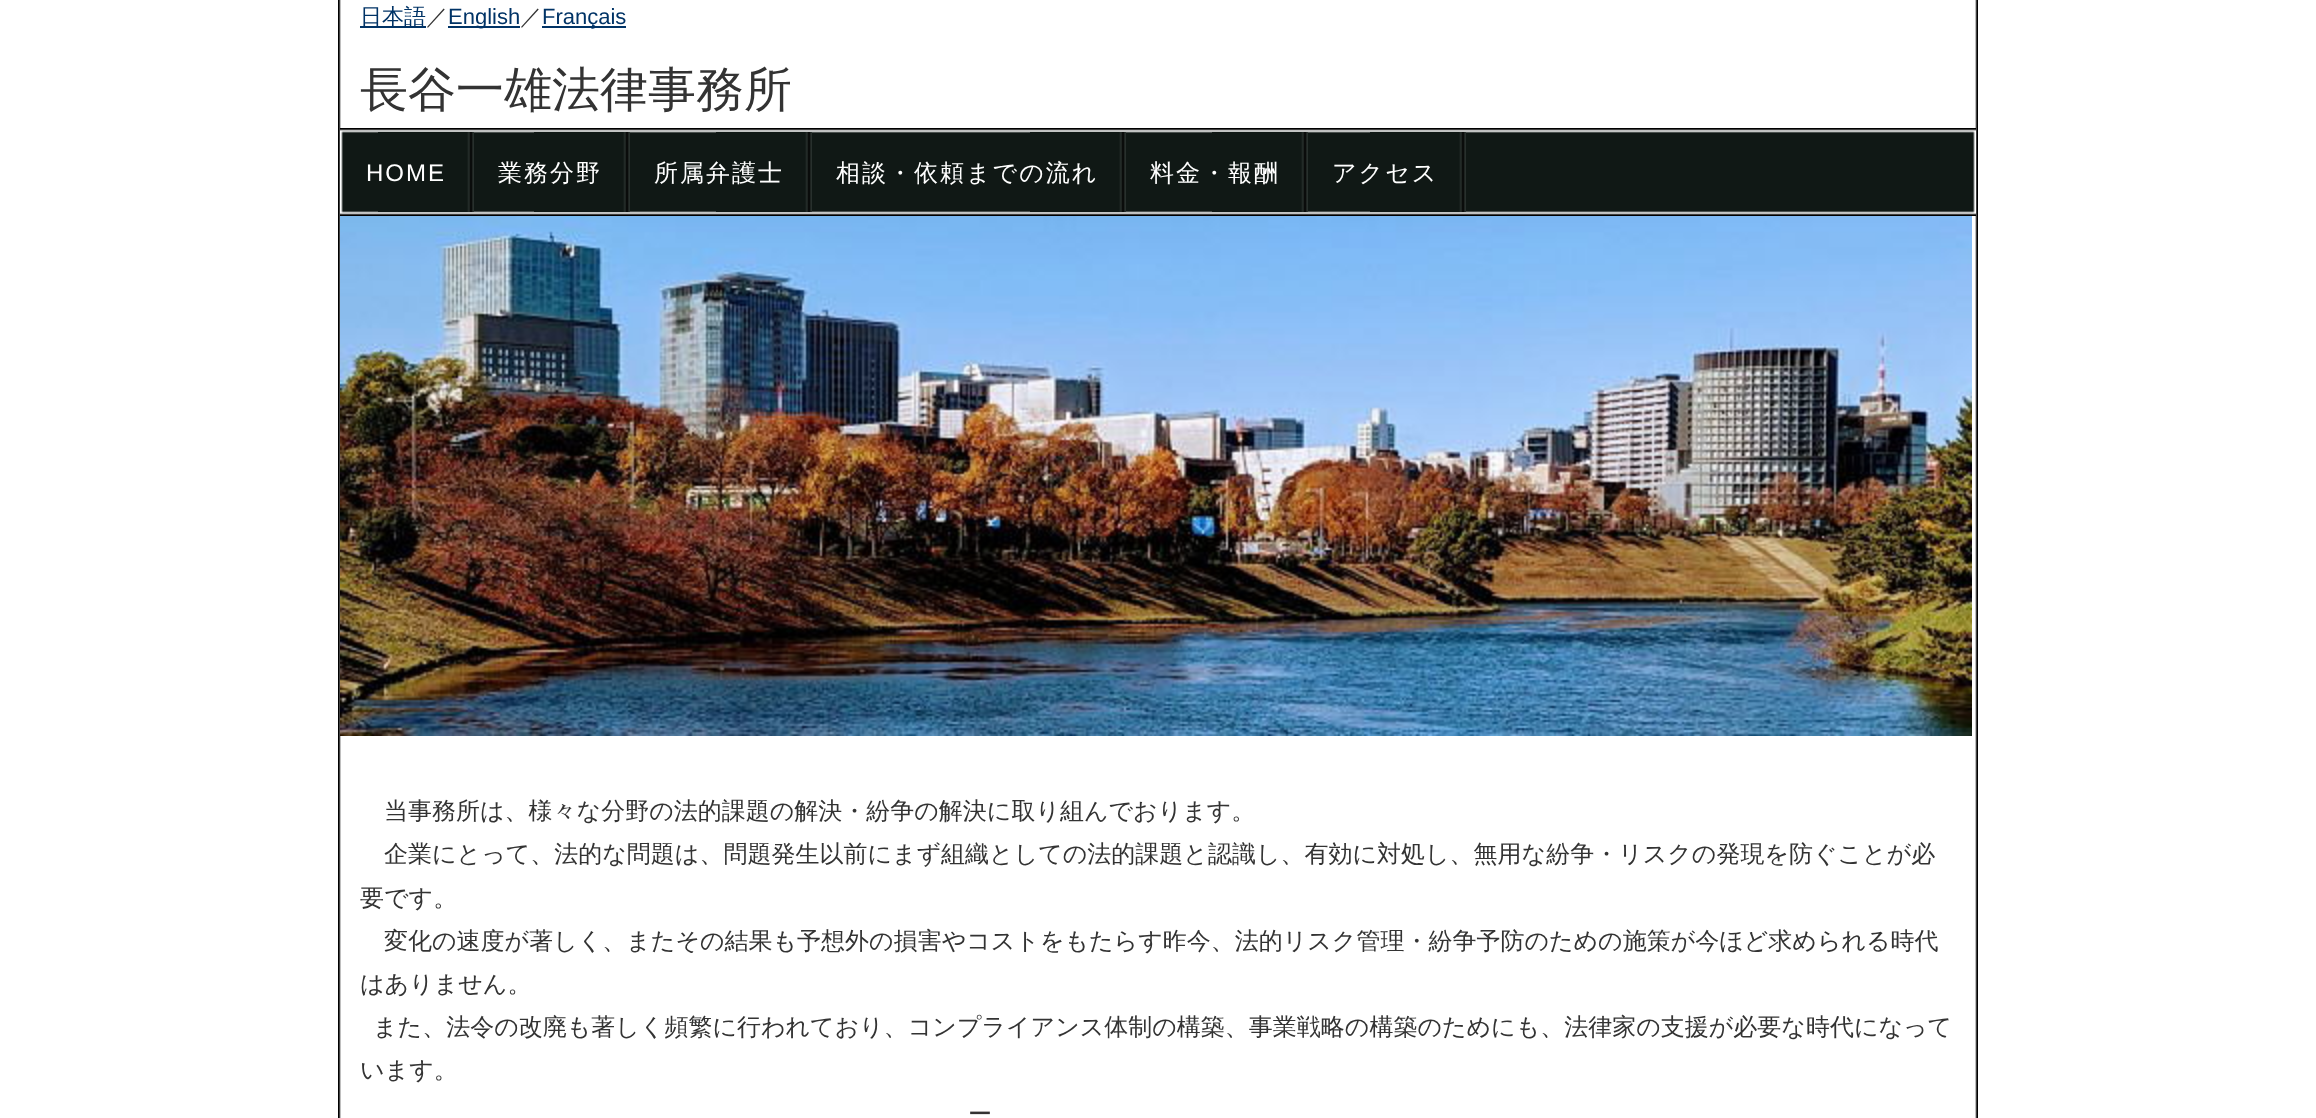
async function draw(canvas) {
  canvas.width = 2316;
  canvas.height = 1118;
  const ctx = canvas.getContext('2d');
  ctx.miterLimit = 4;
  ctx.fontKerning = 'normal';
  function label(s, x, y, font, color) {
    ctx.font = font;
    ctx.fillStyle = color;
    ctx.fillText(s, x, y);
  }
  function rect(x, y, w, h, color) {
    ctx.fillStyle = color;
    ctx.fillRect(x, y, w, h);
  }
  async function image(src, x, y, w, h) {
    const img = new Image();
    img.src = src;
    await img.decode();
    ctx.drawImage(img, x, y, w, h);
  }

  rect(0, 0, 2316, 1118, '#fff');
  await image('assets/img1.png', 338, 0, 1640, 1118);
  rect(360, 26, 66, 2, '#036');
  label('日本語', 360, 24, '500 22px WenQuanYi Zen Hei', '#036');
  label('／', 426, 24, '500 22px WenQuanYi Zen Hei', '#333');
  rect(448, 26, 72, 2, '#036');
  label('English', 448, 24, '22px Liberation Sans', '#036');
  label('／', 520, 24, '500 22px WenQuanYi Zen Hei', '#333');
  rect(542, 26, 84, 2, '#036');
  label('Français', 542, 24, '22px Liberation Sans', '#036');
  label('長谷一雄法律事務所', 360, 106, '500 48px WenQuanYi Zen Hei', '#333');
  await image('assets/img2.png', 340, 128, 1636, 88);
  await image('assets/img3.png', 378, 132, 96, 80);
  ctx.letterSpacing = '2px';
  label('HOME', 366, 181, '24px Liberation Sans', '#fff');
  await image('assets/img3.png', 534, 132, 96, 80);
  label('業務分野', 498, 181, '500 24px WenQuanYi Zen Hei', '#fff');
  await image('assets/img3.png', 716, 132, 96, 80);
  label('所属弁護士', 654, 181, '500 24px WenQuanYi Zen Hei', '#fff');
  await image('assets/img3.png', 1030, 132, 96, 80);
  label('相談・依頼までの流れ', 836, 181, '500 24px WenQuanYi Zen Hei', '#fff');
  await image('assets/img3.png', 1212, 132, 96, 80);
  label('料金・報酬', 1150, 181, '500 24px WenQuanYi Zen Hei', '#fff');
  await image('assets/img3.png', 1370, 132, 96, 80);
  label('アクセス', 1332, 181, '500 24px WenQuanYi Zen Hei', '#fff');
  await image('assets/img4.png', 340, 216, 1632, 520);
  ctx.letterSpacing = '0px';
  label('当事務所は、様々な分野の法的課題の解決・紛争の解決に取り組んでおります。', 384, 819, '500 24px WenQuanYi Zen Hei', '#333');
  label('企業にとって、法的な問題は、問題発生以前にまず組織としての法的課題と認識し、有効に対処し、無用な紛争・リスクの発現を防ぐことが必', 384, 862, '500 24px WenQuanYi Zen Hei', '#333');
  label('要です。', 360, 906, '500 24px WenQuanYi Zen Hei', '#333');
  label('変化の速度が著しく、またその結果も予想外の損害やコストをもたらす昨今、法的リスク管理・紛争予防のための施策が今ほど求められる時代', 384, 949, '500 24px WenQuanYi Zen Hei', '#333');
  label('はありません。', 360, 992, '500 24px WenQuanYi Zen Hei', '#333');
  label('また、法令の改廃も著しく頻繁に行われており、コンプライアンス体制の構築、事業戦略の構築のためにも、法律家の支援が必要な時代になって', 373, 1035, '500 24px WenQuanYi Zen Hei', '#333');
  label('います。', 360, 1078, '500 24px WenQuanYi Zen Hei', '#333');
  label('ー', 968, 1122, '500 24px WenQuanYi Zen Hei', '#333');
}

draw(document.querySelector('canvas'));
